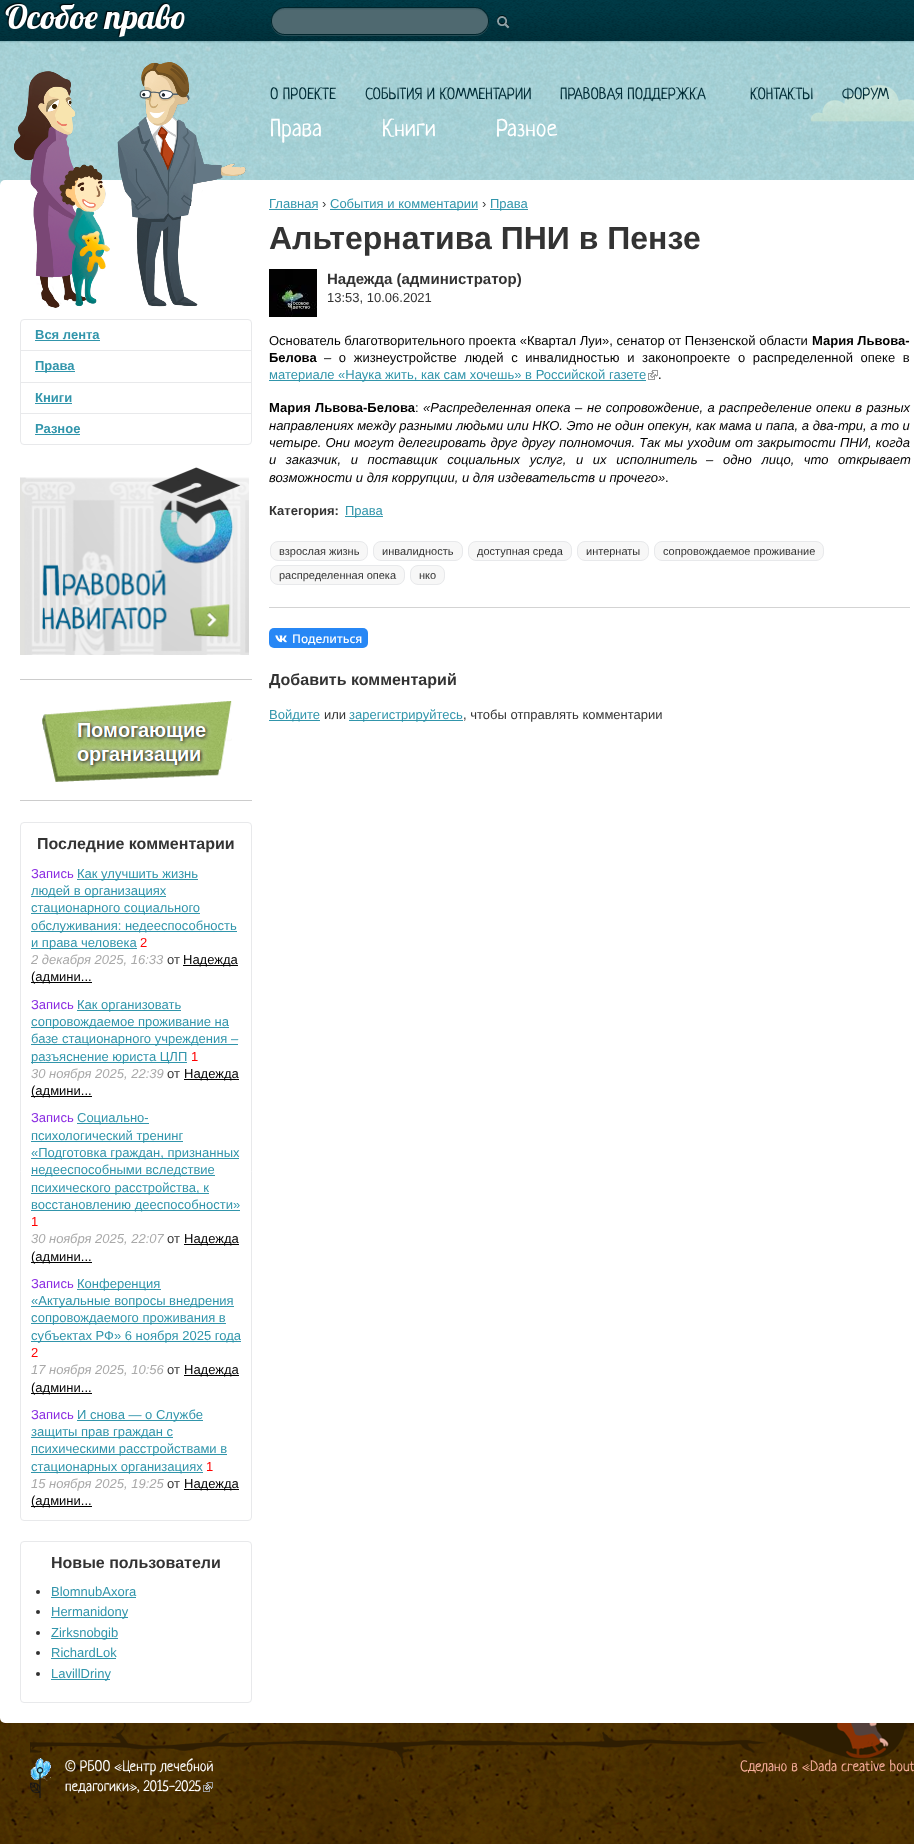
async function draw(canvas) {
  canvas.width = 914;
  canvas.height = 1844;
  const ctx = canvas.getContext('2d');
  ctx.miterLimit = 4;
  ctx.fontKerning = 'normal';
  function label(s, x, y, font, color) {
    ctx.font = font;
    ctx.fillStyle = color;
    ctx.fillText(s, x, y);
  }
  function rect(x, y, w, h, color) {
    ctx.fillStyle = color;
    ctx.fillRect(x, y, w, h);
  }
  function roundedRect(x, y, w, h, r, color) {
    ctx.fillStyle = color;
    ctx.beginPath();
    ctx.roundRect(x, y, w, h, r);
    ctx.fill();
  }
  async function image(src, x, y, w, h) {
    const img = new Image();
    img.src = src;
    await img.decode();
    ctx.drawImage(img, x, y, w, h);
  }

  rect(0, 0, 914, 1844, '#fff');
  await image('assets/img1.png', 0, 1723, 914, 121);
  await image('assets/img2.png', 0, 41, 914, 144);
  await image('assets/img3.png', 810, 85, 104, 37);
  await image('assets/img4.png', 0, 0, 914, 43);
  await image('assets/img5.png', 3, 2, 182, 36);
  await image('assets/img6.png', 14, 62, 232, 118);
  await image('assets/img7.png', 271, 7, 239, 29);
  label('О ПРОЕКТЕ', 270, 99, '16px Neucha', '#002c36');
  label('СОБЫТИЯ И КОММЕНТАРИИ', 365, 99, '16px Neucha', '#002c36');
  label('ПРАВОВАЯ ПОДДЕРЖКА', 560, 99, '16px Neucha', '#002c36');
  label('КОНТАКТЫ', 750, 99, '16px Neucha', '#002c36');
  label('ФОРУМ', 842, 99, '16px Neucha', '#002c36');
  label('Права', 270, 136, '24px Neucha', '#fff');
  label('Книги', 382, 136, '24px Neucha', '#fff');
  label('Разное', 496, 136, '24px Neucha', '#fff');
  await image('assets/img14.png', 0, 1718, 5, 5);
  roundedRect(0, 180, 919, 1543, 5, '#fff');
  ctx.beginPath();
  ctx.roundRect(20.5, 319.5, 231, 125, 3.5);
  ctx.strokeStyle = '#e8e9eb';
  ctx.stroke();
  rect(21, 350, 230, 1, '#e8e9eb');
  label('Вся лента', 35, 339, 'bold 13px Liberation Sans', '#3195ab');
  rect(35, 340, 65, 1, '#3195ab');
  rect(21, 382, 230, 1, '#e8e9eb');
  rect(35, 371, 40, 1, '#3195ab');
  label('Права', 35, 370, 'bold 13px Liberation Sans', '#3195ab');
  rect(21, 413, 230, 1, '#e8e9eb');
  label('Книги', 35, 402, 'bold 13px Liberation Sans', '#3195ab');
  rect(35, 403, 37, 1, '#3195ab');
  label('Разное', 35, 433, 'bold 13px Liberation Sans', '#3195ab');
  rect(35, 434, 45, 1, '#3195ab');
  await image('assets/img8.png', 20, 467, 229, 188);
  rect(20, 679, 232, 1, '#ccc');
  await image('assets/img9.png', 42, 701, 190, 81);
  rect(20, 800, 232, 1, '#ccc');
  ctx.beginPath();
  ctx.roundRect(20.5, 822.5, 231, 698, 3.5);
  ctx.stroke();
  label('Последние комментарии', 37, 849, 'bold 16px Liberation Sans', '#333');
  label('Запись', 31, 878, '13px Liberation Sans', '#8a2be2');
  rect(77, 879, 121, 1, '#3195ab');
  label('Как улучшить жизнь', 77, 878, '13px Liberation Sans', '#3195ab');
  rect(31, 896, 135, 1, '#3195ab');
  label('людей в организациях', 31, 895, '13px Liberation Sans', '#3195ab');
  rect(31, 913, 169, 1, '#3195ab');
  label('стационарного социального', 31, 912, '13px Liberation Sans', '#3195ab');
  rect(31, 931, 206, 1, '#3195ab');
  label('обслуживания: недееспособность', 31, 930, '13px Liberation Sans', '#3195ab');
  rect(31, 948, 106, 1, '#3195ab');
  label('и права человека', 31, 947, '13px Liberation Sans', '#3195ab');
  label('2', 140, 947, '13px Liberation Sans', '#f00');
  label('2 декабря 2025, 16:33', 31, 964, 'italic 13px Liberation Sans', '#a9a9a9');
  label('от', 167, 964, '13px Liberation Sans', '#333');
  rect(183, 965, 55, 1, '#000');
  label('Надежда', 183, 964, '13px Liberation Sans', '#000');
  rect(31, 982, 61, 1, '#000');
  label('(админи...', 31, 981, '13px Liberation Sans', '#000');
  label('Запись', 31, 1009, '13px Liberation Sans', '#8a2be2');
  rect(77, 1010, 104, 1, '#3195ab');
  label('Как организовать', 77, 1009, '13px Liberation Sans', '#3195ab');
  rect(31, 1027, 198, 1, '#3195ab');
  label('сопровождаемое проживание на', 31, 1026, '13px Liberation Sans', '#3195ab');
  rect(31, 1044, 207, 1, '#3195ab');
  label('базе стационарного учреждения –', 31, 1043, '13px Liberation Sans', '#3195ab');
  rect(31, 1062, 156, 1, '#3195ab');
  label('разъяснение юриста ЦЛП', 31, 1061, '13px Liberation Sans', '#3195ab');
  label('1', 191, 1061, '13px Liberation Sans', '#f00');
  label('30 ноября 2025, 22:39', 31, 1078, 'italic 13px Liberation Sans', '#a9a9a9');
  label('от', 167, 1078, '13px Liberation Sans', '#333');
  rect(184, 1079, 55, 1, '#000');
  label('Надежда', 184, 1078, '13px Liberation Sans', '#000');
  rect(31, 1096, 61, 1, '#000');
  label('(админи...', 31, 1095, '13px Liberation Sans', '#000');
  label('Запись', 31, 1122, '13px Liberation Sans', '#8a2be2');
  rect(77, 1123, 72, 1, '#3195ab');
  label('Социально-', 77, 1122, '13px Liberation Sans', '#3195ab');
  rect(31, 1141, 152, 1, '#3195ab');
  label('психологический тренинг', 31, 1140, '13px Liberation Sans', '#3195ab');
  rect(31, 1158, 208, 1, '#3195ab');
  label('«Подготовка граждан, признанных', 31, 1157, '13px Liberation Sans', '#3195ab');
  rect(31, 1175, 184, 1, '#3195ab');
  label('недееспособными вследствие', 31, 1174, '13px Liberation Sans', '#3195ab');
  rect(31, 1193, 178, 1, '#3195ab');
  label('психического расстройства, к', 31, 1192, '13px Liberation Sans', '#3195ab');
  rect(31, 1210, 209, 1, '#3195ab');
  label('восстановлению дееспособности»', 31, 1209, '13px Liberation Sans', '#3195ab');
  label('1', 31, 1226, '13px Liberation Sans', '#f00');
  label('30 ноября 2025, 22:07', 31, 1243, 'italic 13px Liberation Sans', '#a9a9a9');
  label('от', 167, 1243, '13px Liberation Sans', '#333');
  rect(184, 1244, 55, 1, '#000');
  label('Надежда', 184, 1243, '13px Liberation Sans', '#000');
  rect(31, 1262, 61, 1, '#000');
  label('(админи...', 31, 1261, '13px Liberation Sans', '#000');
  label('Запись', 31, 1288, '13px Liberation Sans', '#8a2be2');
  rect(77, 1289, 84, 1, '#3195ab');
  label('Конференция', 77, 1288, '13px Liberation Sans', '#3195ab');
  rect(31, 1306, 203, 1, '#3195ab');
  label('«Актуальные вопросы внедрения', 31, 1305, '13px Liberation Sans', '#3195ab');
  rect(31, 1323, 195, 1, '#3195ab');
  label('сопровождаемого проживания в', 31, 1322, '13px Liberation Sans', '#3195ab');
  rect(31, 1341, 210, 1, '#3195ab');
  label('субъектах РФ» 6 ноября 2025 года', 31, 1340, '13px Liberation Sans', '#3195ab');
  label('2', 31, 1357, '13px Liberation Sans', '#f00');
  label('17 ноября 2025, 10:56', 31, 1374, 'italic 13px Liberation Sans', '#a9a9a9');
  label('от', 167, 1374, '13px Liberation Sans', '#333');
  rect(184, 1375, 55, 1, '#000');
  label('Надежда', 184, 1374, '13px Liberation Sans', '#000');
  rect(31, 1393, 61, 1, '#000');
  label('(админи...', 31, 1392, '13px Liberation Sans', '#000');
  label('Запись', 31, 1419, '13px Liberation Sans', '#8a2be2');
  rect(77, 1420, 126, 1, '#3195ab');
  label('И снова — о Службе', 77, 1419, '13px Liberation Sans', '#3195ab');
  rect(31, 1437, 142, 1, '#3195ab');
  label('защиты прав граждан с', 31, 1436, '13px Liberation Sans', '#3195ab');
  rect(31, 1454, 196, 1, '#3195ab');
  label('психическими расстройствами в', 31, 1453, '13px Liberation Sans', '#3195ab');
  rect(31, 1472, 172, 1, '#3195ab');
  label('стационарных организациях', 31, 1471, '13px Liberation Sans', '#3195ab');
  label('1', 206, 1471, '13px Liberation Sans', '#f00');
  label('15 ноября 2025, 19:25', 31, 1488, 'italic 13px Liberation Sans', '#a9a9a9');
  label('от', 167, 1488, '13px Liberation Sans', '#333');
  rect(184, 1489, 55, 1, '#000');
  label('Надежда', 184, 1488, '13px Liberation Sans', '#000');
  rect(31, 1506, 61, 1, '#000');
  label('(админи...', 31, 1505, '13px Liberation Sans', '#000');
  ctx.beginPath();
  ctx.roundRect(20.5, 1541.5, 231, 161, 3.5);
  ctx.stroke();
  label('Новые пользователи', 51, 1568, 'bold 16px Liberation Sans', '#333');
  ctx.beginPath();
  ctx.arc(38, 1592, 2, 0, 2 * Math.PI);
  ctx.fill();
  label('BlomnubAxora', 51, 1596, '13px Liberation Sans', '#3195ab');
  rect(51, 1597, 85, 1, '#3195ab');
  ctx.fillStyle = '#333';
  ctx.beginPath();
  ctx.arc(38, 1612, 2, 0, 2 * Math.PI);
  ctx.fill();
  rect(51, 1617, 77, 1, '#3195ab');
  label('Hermanidony', 51, 1616, '13px Liberation Sans', '#3195ab');
  ctx.fillStyle = '#333';
  ctx.beginPath();
  ctx.arc(38, 1633, 2, 0, 2 * Math.PI);
  ctx.fill();
  rect(51, 1638, 67, 1, '#3195ab');
  label('Zirksnobgib', 51, 1637, '13px Liberation Sans', '#3195ab');
  ctx.fillStyle = '#333';
  ctx.beginPath();
  ctx.arc(38, 1653, 2, 0, 2 * Math.PI);
  ctx.fill();
  label('RichardLok', 51, 1657, '13px Liberation Sans', '#3195ab');
  rect(51, 1658, 65, 1, '#3195ab');
  ctx.fillStyle = '#333';
  ctx.beginPath();
  ctx.arc(38, 1674, 2, 0, 2 * Math.PI);
  ctx.fill();
  rect(51, 1679, 59, 1, '#3195ab');
  label('LavillDriny', 51, 1678, '13px Liberation Sans', '#3195ab');
  await image('assets/img10.png', 30, 180, 184, 128);
  label('Главная', 269, 208, '13px Liberation Sans', '#3195ab');
  rect(269, 209, 49, 1, '#3195ab');
  label('›', 322, 208, '13px Liberation Sans', '#333');
  rect(330, 209, 148, 1, '#3195ab');
  label('События и комментарии', 330, 208, '13px Liberation Sans', '#3195ab');
  label('›', 482, 208, '13px Liberation Sans', '#333');
  rect(490, 209, 38, 1, '#3195ab');
  label('Права', 490, 208, '13px Liberation Sans', '#3195ab');
  label('Альтернатива ПНИ в Пензе', 269, 249, 'bold 32px Liberation Sans', '#333');
  await image('assets/img11.png', 269, 269, 48, 48);
  label('Надежда (администратор)', 327, 284, 'bold 15px Liberation Sans', '#333');
  label('13:53, 10.06.2021', 327, 302, '13px Liberation Sans', '#333');
  rect(269, 607, 641, 1, '#d3d3d3');
  label('Основатель благотворительного проекта «Квартал Луи», сенатор от Пензенской области', 269, 345, '13px Liberation Sans', '#000');
  label('Мария Львова-', 812, 345, 'bold 13px Liberation Sans', '#000');
  label('Белова', 269, 362, 'bold 13px Liberation Sans', '#000');
  ctx.wordSpacing = '4px';
  label('– о жизнеустройстве людей с инвалидностью и законопроекте о распределенной опеке в', 324, 362, '13px Liberation Sans', '#000');
  rect(269, 380, 377, 1, '#3195ab');
  ctx.wordSpacing = '0px';
  label('материале «Наука жить, как сам хочешь» в Российской газете', 269, 379, '13px Liberation Sans', '#3195ab');
  await image('assets/img12.png', 648, 370, 10, 10);
  label('.', 658, 379, '13px Liberation Sans', '#000');
  ctx.wordSpacing = '0.75px';
  label('Мария Львова-Белова', 269, 412, 'bold 13px Liberation Sans', '#000');
  ctx.wordSpacing = '0px';
  label(':', 415, 412, '13px Liberation Sans', '#000');
  ctx.wordSpacing = '0.75px';
  label('«Распределенная опека', 423, 412, 'italic 13px Liberation Sans', '#000');
  ctx.wordSpacing = '0px';
  label('–', 575, 412, '13px Liberation Sans', '#000');
  ctx.wordSpacing = '0.75px';
  label('не сопровождение, а распределение опеки в разных', 587, 412, 'italic 13px Liberation Sans', '#000');
  ctx.wordSpacing = '0px';
  label('направлениях между разными людьми или НКО. Это не один опекун, как мама и папа, а два-три, а то и', 269, 430, 'italic 13px Liberation Sans', '#000');
  ctx.wordSpacing = '0.6px';
  label('четыре. Они могут делегировать друг другу полномочия. Так мы уходим от закрытости ПНИ, когда', 269, 447, 'italic 13px Liberation Sans', '#000');
  ctx.wordSpacing = '6px';
  label('и заказчик, и поставщик социальных услуг, и их исполнитель', 269, 464, 'italic 13px Liberation Sans', '#000');
  ctx.wordSpacing = '0px';
  label('–', 706, 464, '13px Liberation Sans', '#000');
  ctx.wordSpacing = '6px';
  label('одно лицо, что открывает', 723, 464, 'italic 13px Liberation Sans', '#000');
  ctx.wordSpacing = '0px';
  label('возможности и для коррупции, и для издевательств и прочего»', 269, 482, 'italic 13px Liberation Sans', '#000');
  label('.', 665, 482, '13px Liberation Sans', '#000');
  label('Категория:', 269, 515, 'bold 13px Liberation Sans', '#333');
  rect(345, 516, 38, 1, '#3195ab');
  label('Права', 345, 515, '13px Liberation Sans', '#3195ab');
  ctx.fillStyle = '#f7f7f7';
  ctx.beginPath();
  ctx.roundRect(270.5, 541.5, 97, 19, 7.5);
  ctx.fill();
  ctx.stroke();
  label('взрослая жизнь', 279, 555, '11px Liberation Sans', '#333');
  ctx.fillStyle = '#f7f7f7';
  ctx.beginPath();
  ctx.roundRect(373.5, 541.5, 89, 19, 7.5);
  ctx.fill();
  ctx.stroke();
  label('инвалидность', 382, 555, '11px Liberation Sans', '#333');
  ctx.fillStyle = '#f7f7f7';
  ctx.beginPath();
  ctx.roundRect(468.5, 541.5, 103, 19, 7.5);
  ctx.fill();
  ctx.stroke();
  label('доступная среда', 477, 555, '11px Liberation Sans', '#333');
  ctx.fillStyle = '#f7f7f7';
  ctx.beginPath();
  ctx.roundRect(577.5, 541.5, 71, 19, 7.5);
  ctx.fill();
  ctx.stroke();
  label('интернаты', 586, 555, '11px Liberation Sans', '#333');
  ctx.fillStyle = '#f7f7f7';
  ctx.beginPath();
  ctx.roundRect(654.5, 541.5, 169, 19, 7.5);
  ctx.fill();
  ctx.stroke();
  label('сопровождаемое проживание', 663, 555, '11px Liberation Sans', '#333');
  ctx.fillStyle = '#f7f7f7';
  ctx.beginPath();
  ctx.roundRect(270.5, 565.5, 134, 19, 7.5);
  ctx.fill();
  ctx.stroke();
  label('распределенная опека', 279, 579, '11px Liberation Sans', '#333');
  ctx.fillStyle = '#f7f7f7';
  ctx.beginPath();
  ctx.roundRect(410.5, 565.5, 34, 19, 7.5);
  ctx.fill();
  ctx.stroke();
  label('нко', 419, 579, '11px Liberation Sans', '#333');
  roundedRect(269, 628, 99, 20, 5, '#2787f5');
  await image('assets/img13.png', 275, 635, 12, 8);
  label('Поделиться', 292, 643, '500 12px Noto Sans', '#fff');
  label('Добавить комментарий', 269, 685, 'bold 16px Liberation Sans', '#333');
  rect(269, 720, 51, 1, '#3195ab');
  label('Войдите', 269, 719, '13px Liberation Sans', '#3195ab');
  label('или', 324, 719, '13px Liberation Sans', '#333');
  rect(349, 720, 114, 1, '#3195ab');
  label('зарегистрируйтесь', 349, 719, '13px Liberation Sans', '#3195ab');
  label(', чтобы отправлять комментарии', 463, 719, '13px Liberation Sans', '#333');
  await image('assets/img15.png', 30, 1723, 884, 45);
  await image('assets/img16.png', 30, 1758, 21, 40);
  label('© РБОО «Центр лечебной', 65, 1771, '15px Neucha', '#fff');
  label('педагогики», 2015-2025', 65, 1791, '15px Neucha', '#fff');
  await image('assets/img17.png', 203, 1782, 10, 10);
  label('Сделано в «Dada creative bout', 740, 1771, '15px Neucha', '#f6ad9a');
}

draw(document.querySelector('canvas'));
